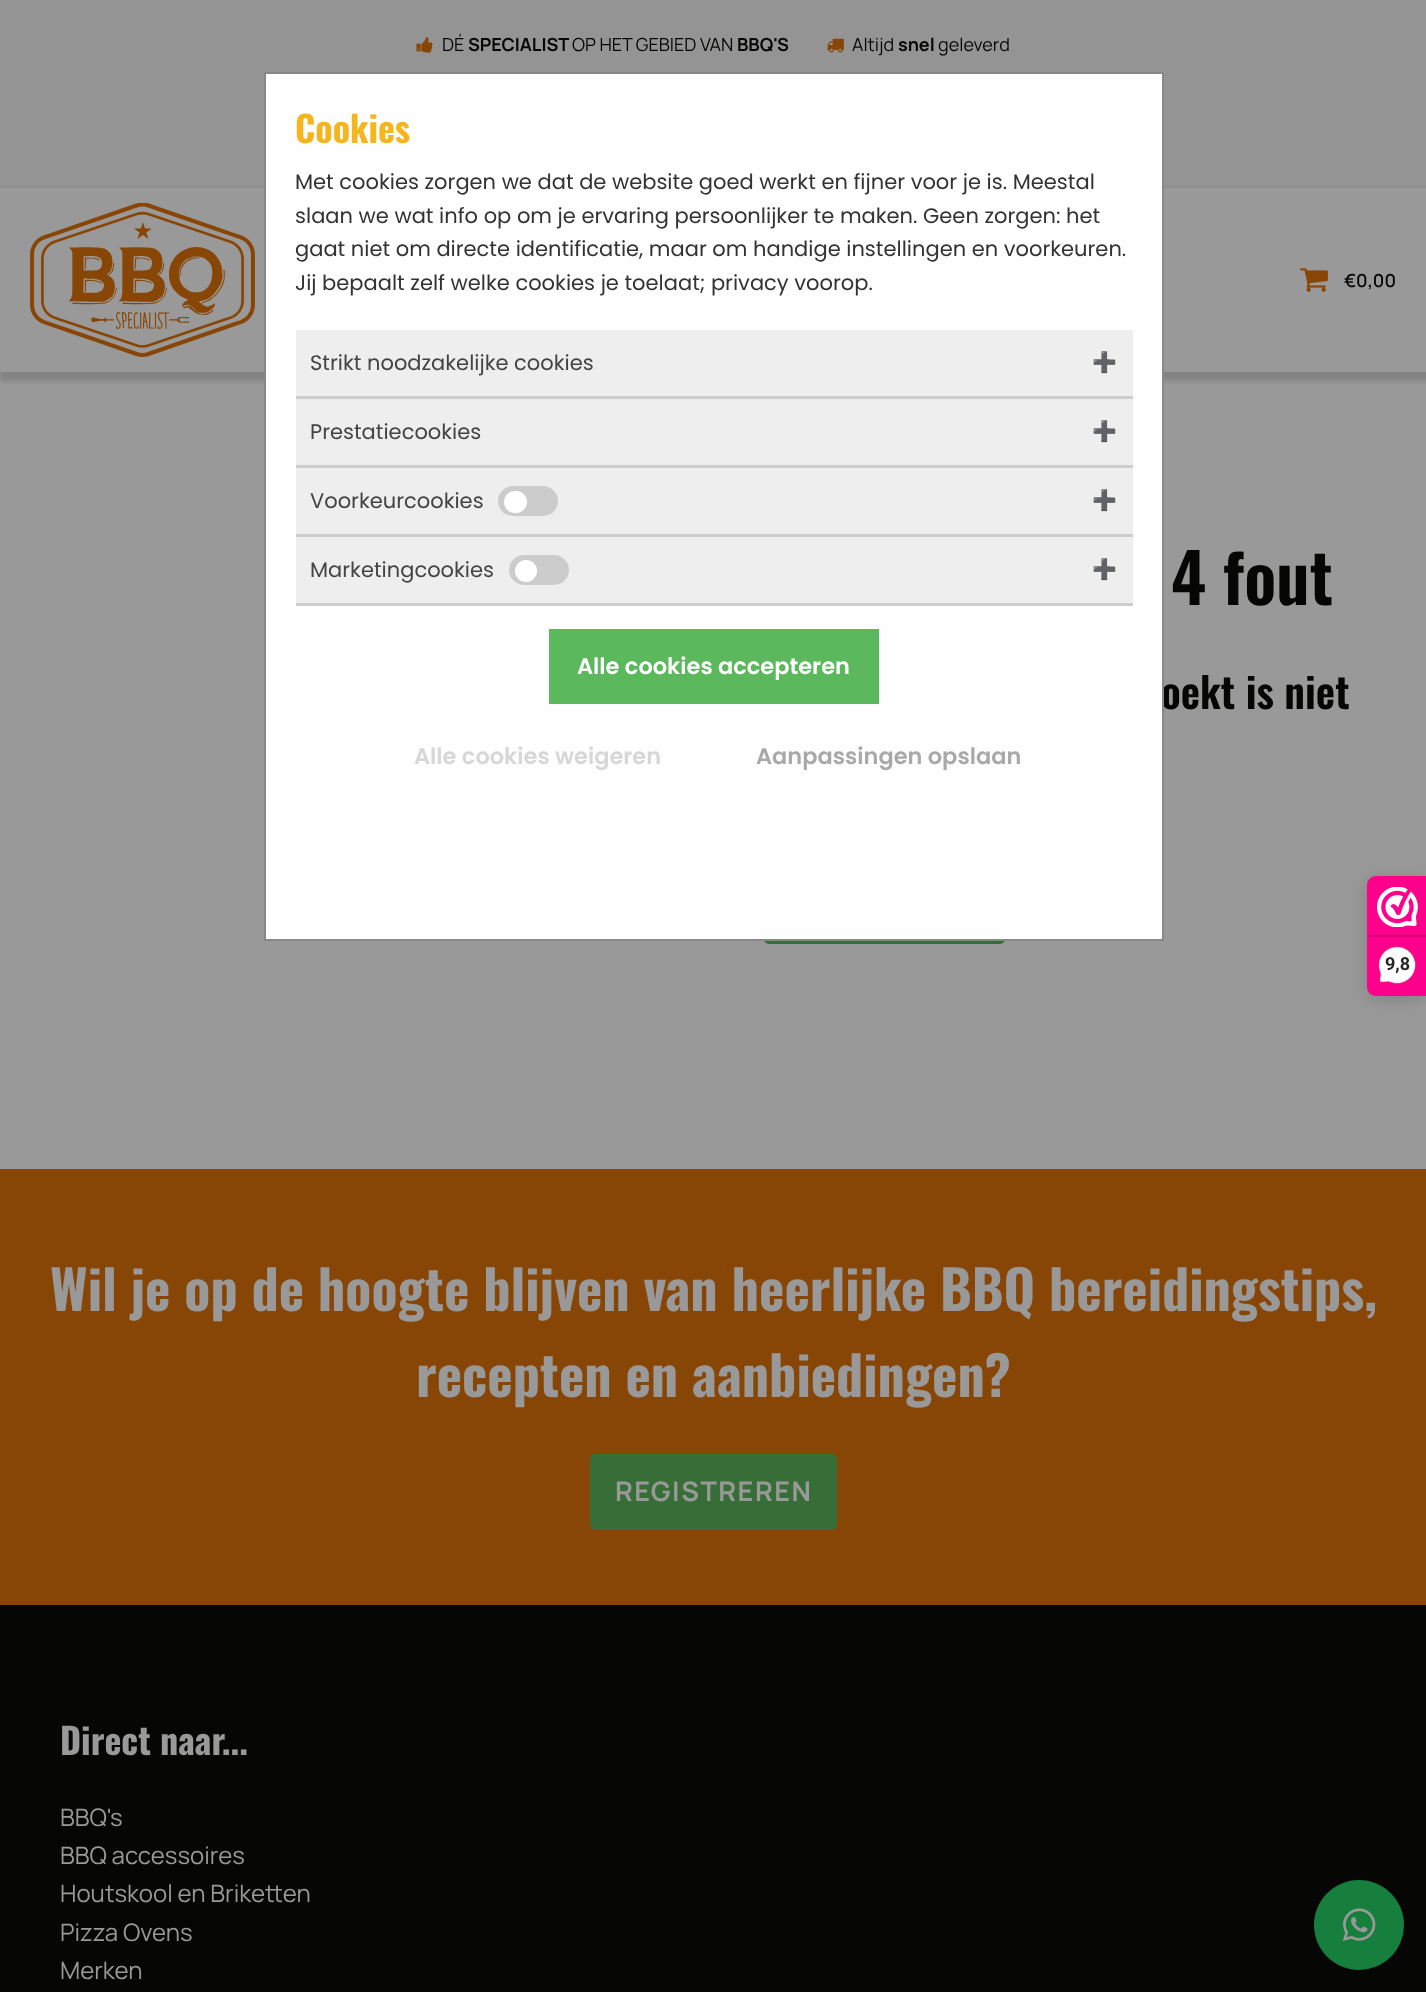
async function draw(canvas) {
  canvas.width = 1426;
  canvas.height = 1992;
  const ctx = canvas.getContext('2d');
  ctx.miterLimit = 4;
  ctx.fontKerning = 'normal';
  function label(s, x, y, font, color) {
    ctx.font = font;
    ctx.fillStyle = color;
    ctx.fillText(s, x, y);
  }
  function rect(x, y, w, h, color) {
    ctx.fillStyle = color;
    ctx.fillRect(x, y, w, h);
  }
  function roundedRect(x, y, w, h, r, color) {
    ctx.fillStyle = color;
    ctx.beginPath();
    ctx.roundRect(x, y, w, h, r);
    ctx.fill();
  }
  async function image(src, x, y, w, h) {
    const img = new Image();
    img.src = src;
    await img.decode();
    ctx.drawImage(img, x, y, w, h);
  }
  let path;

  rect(0, 0, 1426, 1992, '#999');
  rect(0, 0, 1426, 188, '#949494');
  await image('assets/img1.png', 416, 37, 17, 16);
  label('DÉ', 442, 51, '18px Manrope', '#060705');
  label('SPECIALIST', 468, 51, 'bold 18px Manrope', '#060705');
  label('OP HET GEBIED VAN', 572, 51, '18px Manrope', '#060705');
  label('BBQ\'S', 737, 51, 'bold 18px Manrope', '#060705');
  await image('assets/img2.png', 827, 38, 17, 15);
  label('Altijd', 852, 51, '18px Manrope', '#060705');
  label('snel', 898, 51, 'bold 18px Manrope', '#060705');
  label('geleverd', 938, 51, '18px Manrope', '#060705');
  ctx.save();
  path = new Path2D('M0 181H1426V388H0ZM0 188H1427V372H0Z');
  ctx.clip(path, 'evenodd');
  ctx.fillStyle = '#838383';
  ctx.filter = 'blur(2px)';
  ctx.beginPath();
  ctx.rect(0, 188, 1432, 193);
  ctx.fill();
  ctx.filter = 'none';
  ctx.restore();
  label('oekt is niet', 1161, 709, '600 42px Oswald', '#060705');
  ctx.fillStyle = '#376e37';
  ctx.beginPath();
  ctx.roundRect(765, 874, 239, 69, 4);
  ctx.fill();
  ctx.strokeStyle = '#376e37';
  ctx.lineWidth = 2;
  ctx.stroke();
  ctx.fillStyle = '#fefefe';
  ctx.beginPath();
  ctx.rect(265, 73, 898, 867);
  ctx.fill();
  ctx.strokeStyle = '#888';
  ctx.stroke();
  label('Cookies', 295, 143, 'bold 36px Oswald', '#f5b51f');
  label('Met cookies zorgen we dat de website goed werkt en fijner voor je is. Meestal', 295, 189, '21px Poppins', '#333');
  label('slaan we wat info op om je ervaring persoonlijker te maken. Geen zorgen: het', 295, 223, '21px Poppins', '#333');
  label('gaat niet om directe identificatie, maar om handige instellingen en voorkeuren.', 295, 256, '21px Poppins', '#333');
  label('Jij bepaalt zelf welke cookies je toelaat; privacy voorop.', 295, 290, '21px Poppins', '#333');
  rect(296, 330, 837, 66, '#eee');
  label('Strikt noodzakelijke cookies', 310, 370, '21px Poppins', '#444');
  label('➕', 1092, 369, '20px Noto Color Emoji', '#777');
  rect(296, 396, 837, 3, '#cdcdcd');
  rect(296, 399, 837, 66, '#eee');
  label('Prestatiecookies', 310, 439, '21px Poppins', '#444');
  label('➕', 1092, 438, '20px Noto Color Emoji', '#777');
  rect(296, 465, 837, 3, '#cdcdcd');
  rect(296, 468, 837, 66, '#eee');
  label('Voorkeurcookies', 310, 508, '21px Poppins', '#444');
  roundedRect(498, 486, 60, 30, 15, '#ccc');
  roundedRect(504, 491, 23, 22, 11, '#fff');
  label('➕', 1092, 507, '20px Noto Color Emoji', '#777');
  rect(296, 534, 837, 3, '#cdcdcd');
  rect(296, 537, 837, 66, '#eee');
  label('Marketingcookies', 310, 577, '21px Poppins', '#444');
  roundedRect(509, 555, 60, 30, 15, '#ccc');
  ctx.fillStyle = '#fff';
  ctx.beginPath();
  ctx.arc(526, 571, 11, 0, 2 * Math.PI);
  ctx.fill();
  label('➕', 1092, 576, '20px Noto Color Emoji', '#777');
  rect(296, 603, 837, 3, '#cdcdcd');
  rect(549, 629, 330, 75, '#5cb85c');
  label('Alle cookies accepteren', 577, 674, '600 22.5px Poppins', '#fff');
  label('Alle cookies weigeren', 414, 764, '600 22.5px Poppins', '#d7d7d7');
  label('Aanpassingen opslaan', 756, 764, '600 22.5px Poppins', '#a9a9a9');
  await image('assets/img3.png', 30, 203, 225, 154);
  await image('assets/img4.png', 1300, 268, 28, 24);
  label('€0,00', 1344, 287, '600 18px Manrope', '#060705');
  label('4 fout', 1171, 605, '600 68px Oswald', '#060705');
  ctx.fillStyle = '#00000026';
  ctx.filter = 'blur(7.5px)';
  ctx.beginPath();
  ctx.roundRect(1367, 879, 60, 120, 9);
  ctx.fill();
  ctx.filter = 'none';
  ctx.fillStyle = '#fe008c';
  path = new Path2D('M1376 876H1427V996H1376C1371 996 1367 992 1367 987V885C1367 880 1371 876 1376 876Z');
  ctx.fill(path);
  await image('assets/img5.png', 1377, 887, 41, 40);
  rect(1368, 935, 58, 2, '#d80077');
  await image('assets/img6.png', 1378, 946, 38, 38);
  label('9,8', 1385, 970, 'bold 18px Roboto', '#272626');
  rect(0, 1169, 1426, 436, '#884606');
  label('Wil je op de hoogte blijven van heerlijke BBQ bereidingstips,', 50, 1311, 'bold 54px Oswald', '#999');
  label('recepten en aanbiedingen?', 416, 1397, 'bold 54px Oswald', '#999');
  ctx.fillStyle = '#376e37';
  ctx.beginPath();
  ctx.roundRect(591, 1455, 245, 74, 4);
  ctx.fill();
  ctx.strokeStyle = '#376e37';
  ctx.stroke();
  ctx.letterSpacing = '1.5px';
  label('REGISTREREN', 615, 1501, 'bold 27px Manrope', '#999');
  rect(0, 1605, 1426, 387, '#060705');
  ctx.letterSpacing = '0px';
  label('Direct naar...', 60, 1755, 'bold 36px Oswald', '#999');
  label('BBQ\'s', 60, 1826, '24px Manrope', '#999');
  label('BBQ accessoires', 60, 1864, '24px Manrope', '#999');
  label('Houtskool en Briketten', 60, 1902, '24px Manrope', '#999');
  label('Pizza Ovens', 60, 1941, '24px Manrope', '#999');
  label('Merken', 60, 1979, '24px Manrope', '#999');
  ctx.fillStyle = '#167f3d';
  ctx.beginPath();
  ctx.arc(1359, 1925, 45, 0, 2 * Math.PI);
  ctx.fill();
  await image('assets/img7.png', 1343, 1908, 33, 33);
}

draw(document.querySelector('canvas'));
